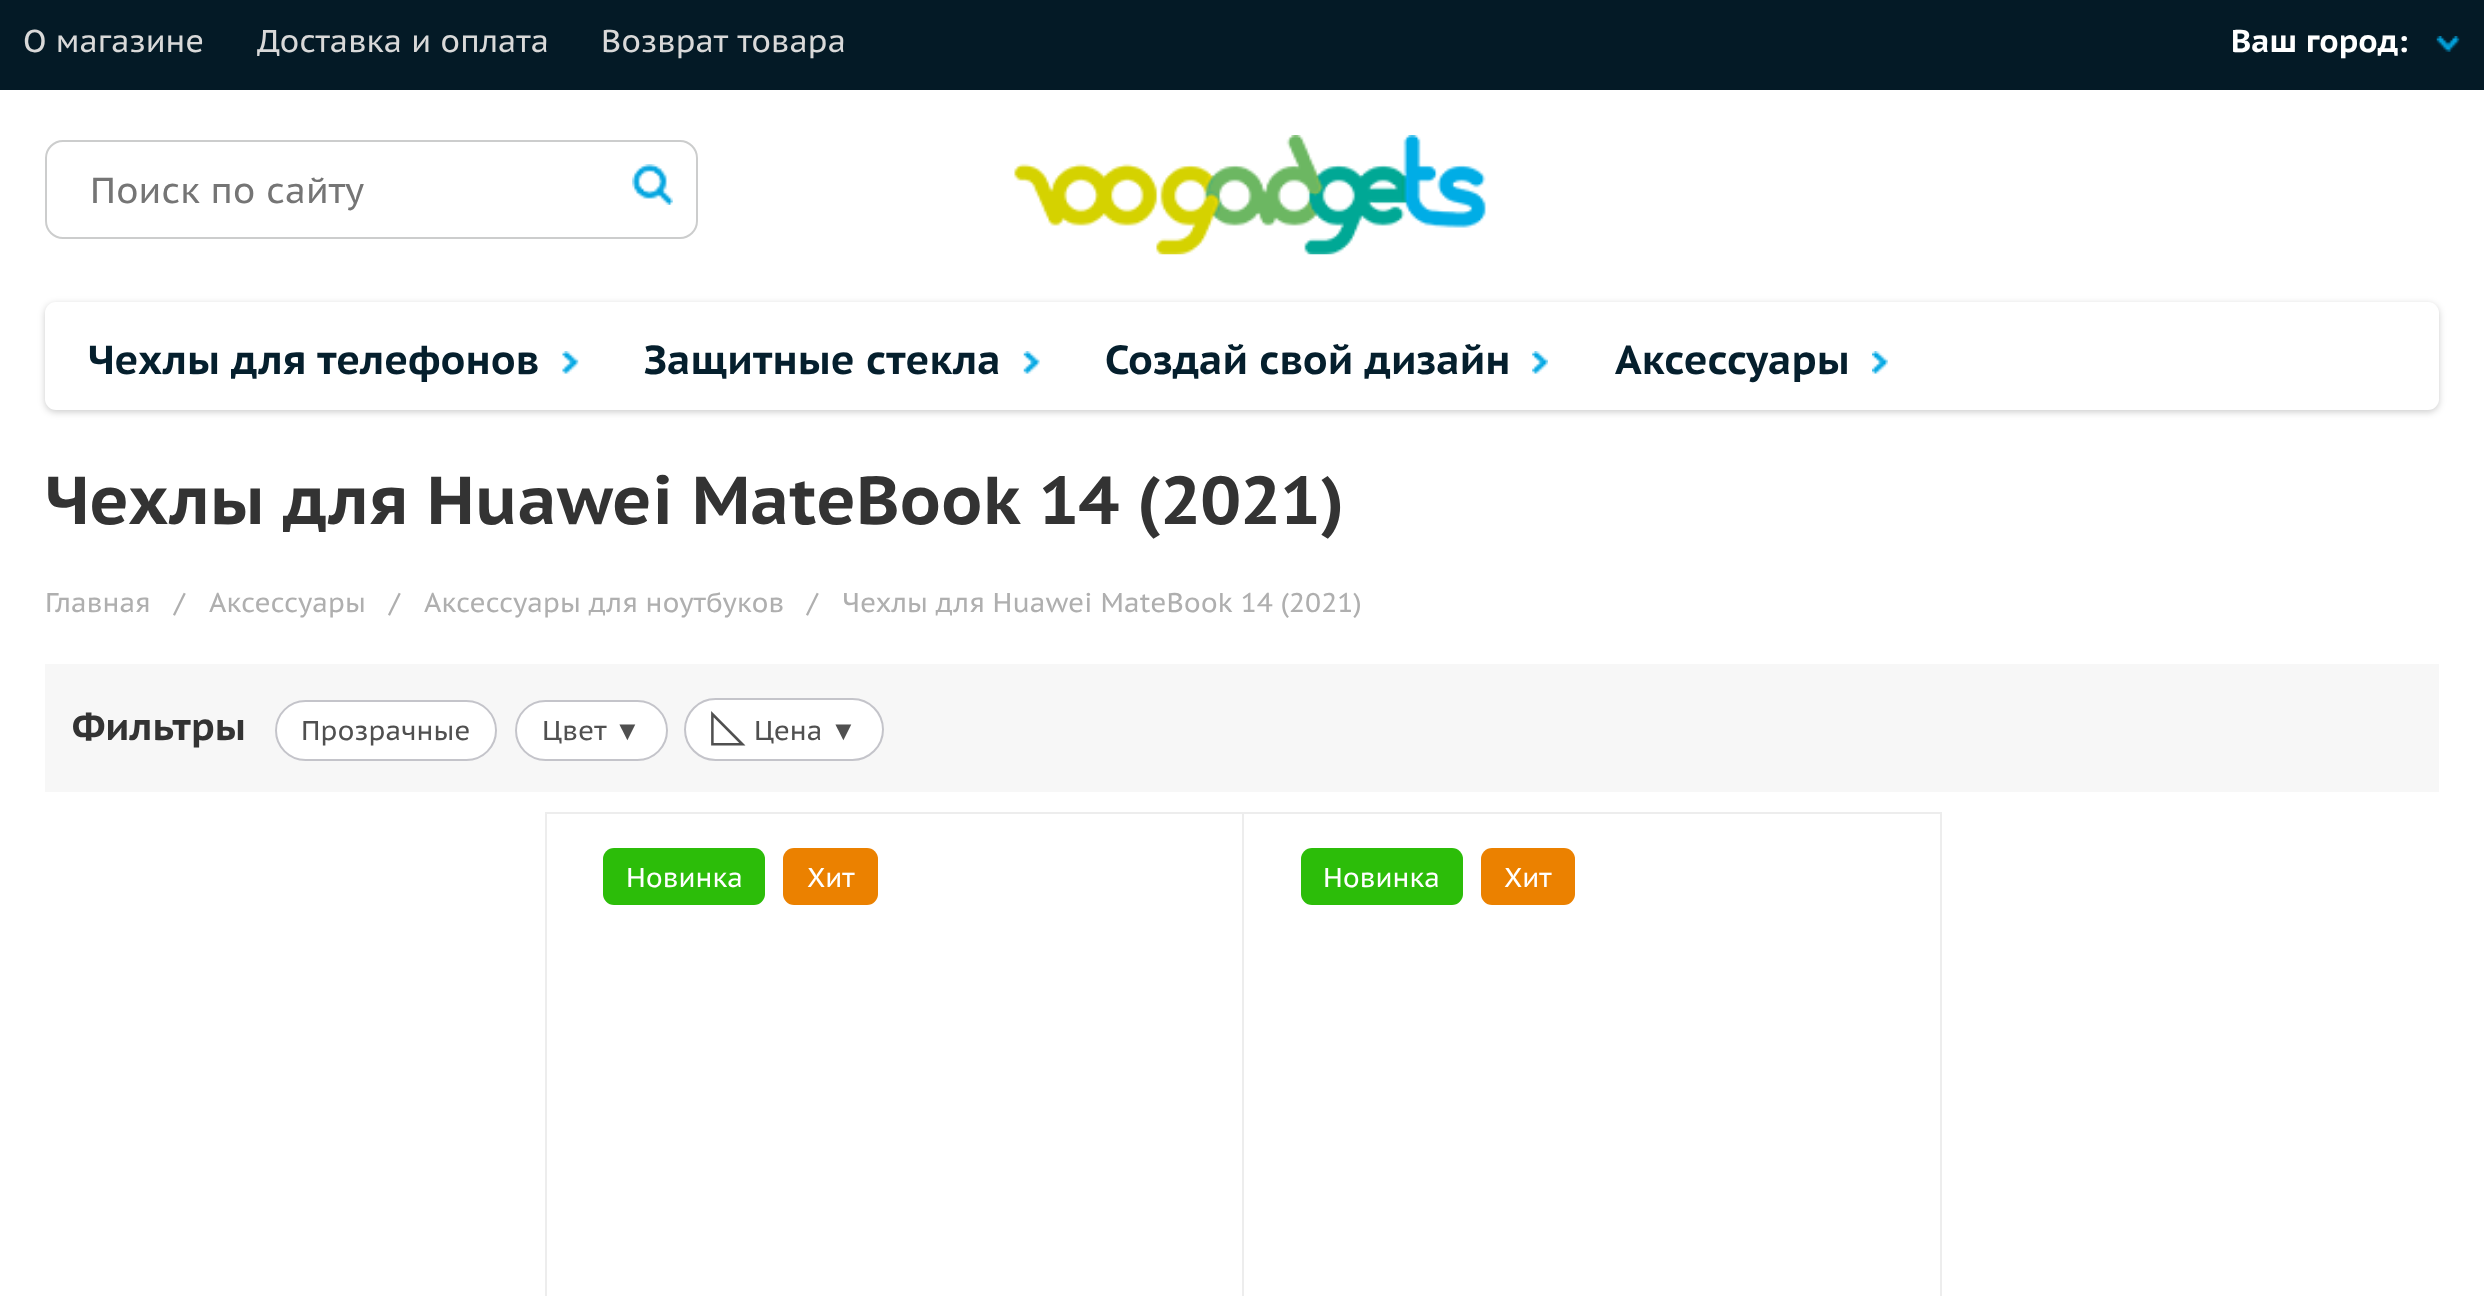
async function draw(canvas) {
  canvas.width = 2484;
  canvas.height = 1296;
  const ctx = canvas.getContext('2d');
  ctx.miterLimit = 4;
  ctx.fontKerning = 'normal';
  function label(s, x, y, font, color) {
    ctx.font = font;
    ctx.fillStyle = color;
    ctx.fillText(s, x, y);
  }
  function rect(x, y, w, h, color) {
    ctx.fillStyle = color;
    ctx.fillRect(x, y, w, h);
  }
  function roundedRect(x, y, w, h, r, color) {
    ctx.fillStyle = color;
    ctx.beginPath();
    ctx.roundRect(x, y, w, h, r);
    ctx.fill();
  }
  async function image(src, x, y, w, h) {
    const img = new Image();
    img.src = src;
    await img.decode();
    ctx.drawImage(img, x, y, w, h);
  }

  rect(0, 0, 2484, 1296, '#fff');
  rect(0, 0, 2484, 90, '#041a26');
  label('О магазине', 23, 52, '31.5px PT Sans Caption', '#d9d9d9');
  label('Доставка и оплата', 257, 52, '31.5px PT Sans Caption', '#d9d9d9');
  ctx.wordSpacing = '1px';
  label('Возврат товара', 601, 52, '31.5px PT Sans Caption', '#d9d9d9');
  ctx.wordSpacing = '0px';
  label('Ваш город:', 2231, 52, 'bold 31.5px PT Sans Caption', '#fff');
  await image('assets/img1.png', 2436, 36, 24, 16);
  ctx.beginPath();
  ctx.roundRect(46, 141, 651, 97, 17);
  ctx.strokeStyle = '#cccdcd';
  ctx.lineWidth = 2;
  ctx.stroke();
  label('Поиск по сайту', 90, 203, '36px PT Sans Caption', '#757575');
  await image('assets/img2.png', 632, 164, 41, 41);
  await image('assets/img3.png', 1014, 135, 472, 120);
  ctx.fillStyle = '#00000033';
  ctx.filter = 'blur(3.5px)';
  ctx.beginPath();
  ctx.roundRect(45, 304, 2394, 108, 11);
  ctx.fill();
  ctx.filter = 'none';
  roundedRect(45, 302, 2394, 108, 11, '#fff');
  label('Чехлы для телефонов', 88, 374, 'bold 40.5px PT Sans Caption', '#051f2d');
  await image('assets/img4.png', 562, 351, 17, 23);
  label('Защитные стекла', 644, 374, 'bold 40.5px PT Sans Caption', '#051f2d');
  await image('assets/img5.png', 1023, 351, 17, 23);
  label('Создай свой дизайн', 1105, 374, 'bold 40.5px PT Sans Caption', '#051f2d');
  await image('assets/img6.png', 1532, 351, 16, 23);
  label('Аксессуары', 1615, 374, 'bold 40.5px PT Sans Caption', '#051f2d');
  await image('assets/img7.png', 1872, 351, 16, 23);
  ctx.wordSpacing = '-0.5px';
  label('Чехлы для Huawei MateBook 14 (2021)', 45, 524, 'bold 67.5px PT Sans Caption', '#333');
  ctx.wordSpacing = '0px';
  label('Главная', 45, 612, '27px PT Sans Caption', '#afafaf');
  label('/', 174, 612, '27px PT Sans Caption', '#afafaf');
  label('Аксессуары', 209, 612, '27px PT Sans Caption', '#afafaf');
  label('/', 389, 612, '27px PT Sans Caption', '#afafaf');
  label('Аксессуары для ноутбуков', 424, 612, '27px PT Sans Caption', '#afafaf');
  label('/', 807, 612, '27px PT Sans Caption', '#afafaf');
  label('Чехлы для Huawei MateBook 14 (2021)', 842, 612, '27px PT Sans Caption', '#afafaf');
  rect(45, 664, 2394, 128, '#f7f7f7');
  label('Фильтры', 72, 740, 'bold 38.25px PT Sans Caption', '#333');
  ctx.fillStyle = '#fff';
  ctx.beginPath();
  ctx.roundRect(276, 701, 220, 59, 29.5);
  ctx.fill();
  ctx.strokeStyle = '#c4c4ca';
  ctx.stroke();
  label('Прозрачные', 301, 740, '27px PT Sans Caption', '#505050');
  ctx.fillStyle = '#fff';
  ctx.beginPath();
  ctx.roundRect(516, 701, 151, 59, 29.5);
  ctx.fill();
  ctx.stroke();
  label('Цвет', 542, 740, '27px PT Sans Caption', '#505050');
  label('▼', 614, 740, '27px Liberation Sans', '#505050');
  ctx.fillStyle = '#fff';
  ctx.beginPath();
  ctx.roundRect(685, 699, 198, 61, 30.5);
  ctx.fill();
  ctx.stroke();
  label('◺', 711, 740, '45px DejaVu Sans', '#505050');
  label('Цена', 754, 740, '27px PT Sans Caption', '#505050');
  label('▼', 830, 740, '27px Liberation Sans', '#505050');
  ctx.strokeStyle = '#ededed';
  ctx.strokeRect(546, 813, 697, 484);
  roundedRect(603, 848, 162, 57, 11, '#2cbd09');
  label('Новинка', 626, 887, '27px PT Sans Caption', '#fff');
  roundedRect(783, 848, 95, 57, 11, '#eb8100');
  label('Хит', 807, 887, '27px PT Sans Caption', '#fff');
  ctx.strokeRect(1243, 813, 698, 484);
  roundedRect(1301, 848, 162, 57, 11, '#2cbd09');
  label('Новинка', 1323, 887, '27px PT Sans Caption', '#fff');
  roundedRect(1481, 848, 94, 57, 11, '#eb8100');
  label('Хит', 1504, 887, '27px PT Sans Caption', '#fff');
}

draw(document.querySelector('canvas'));
